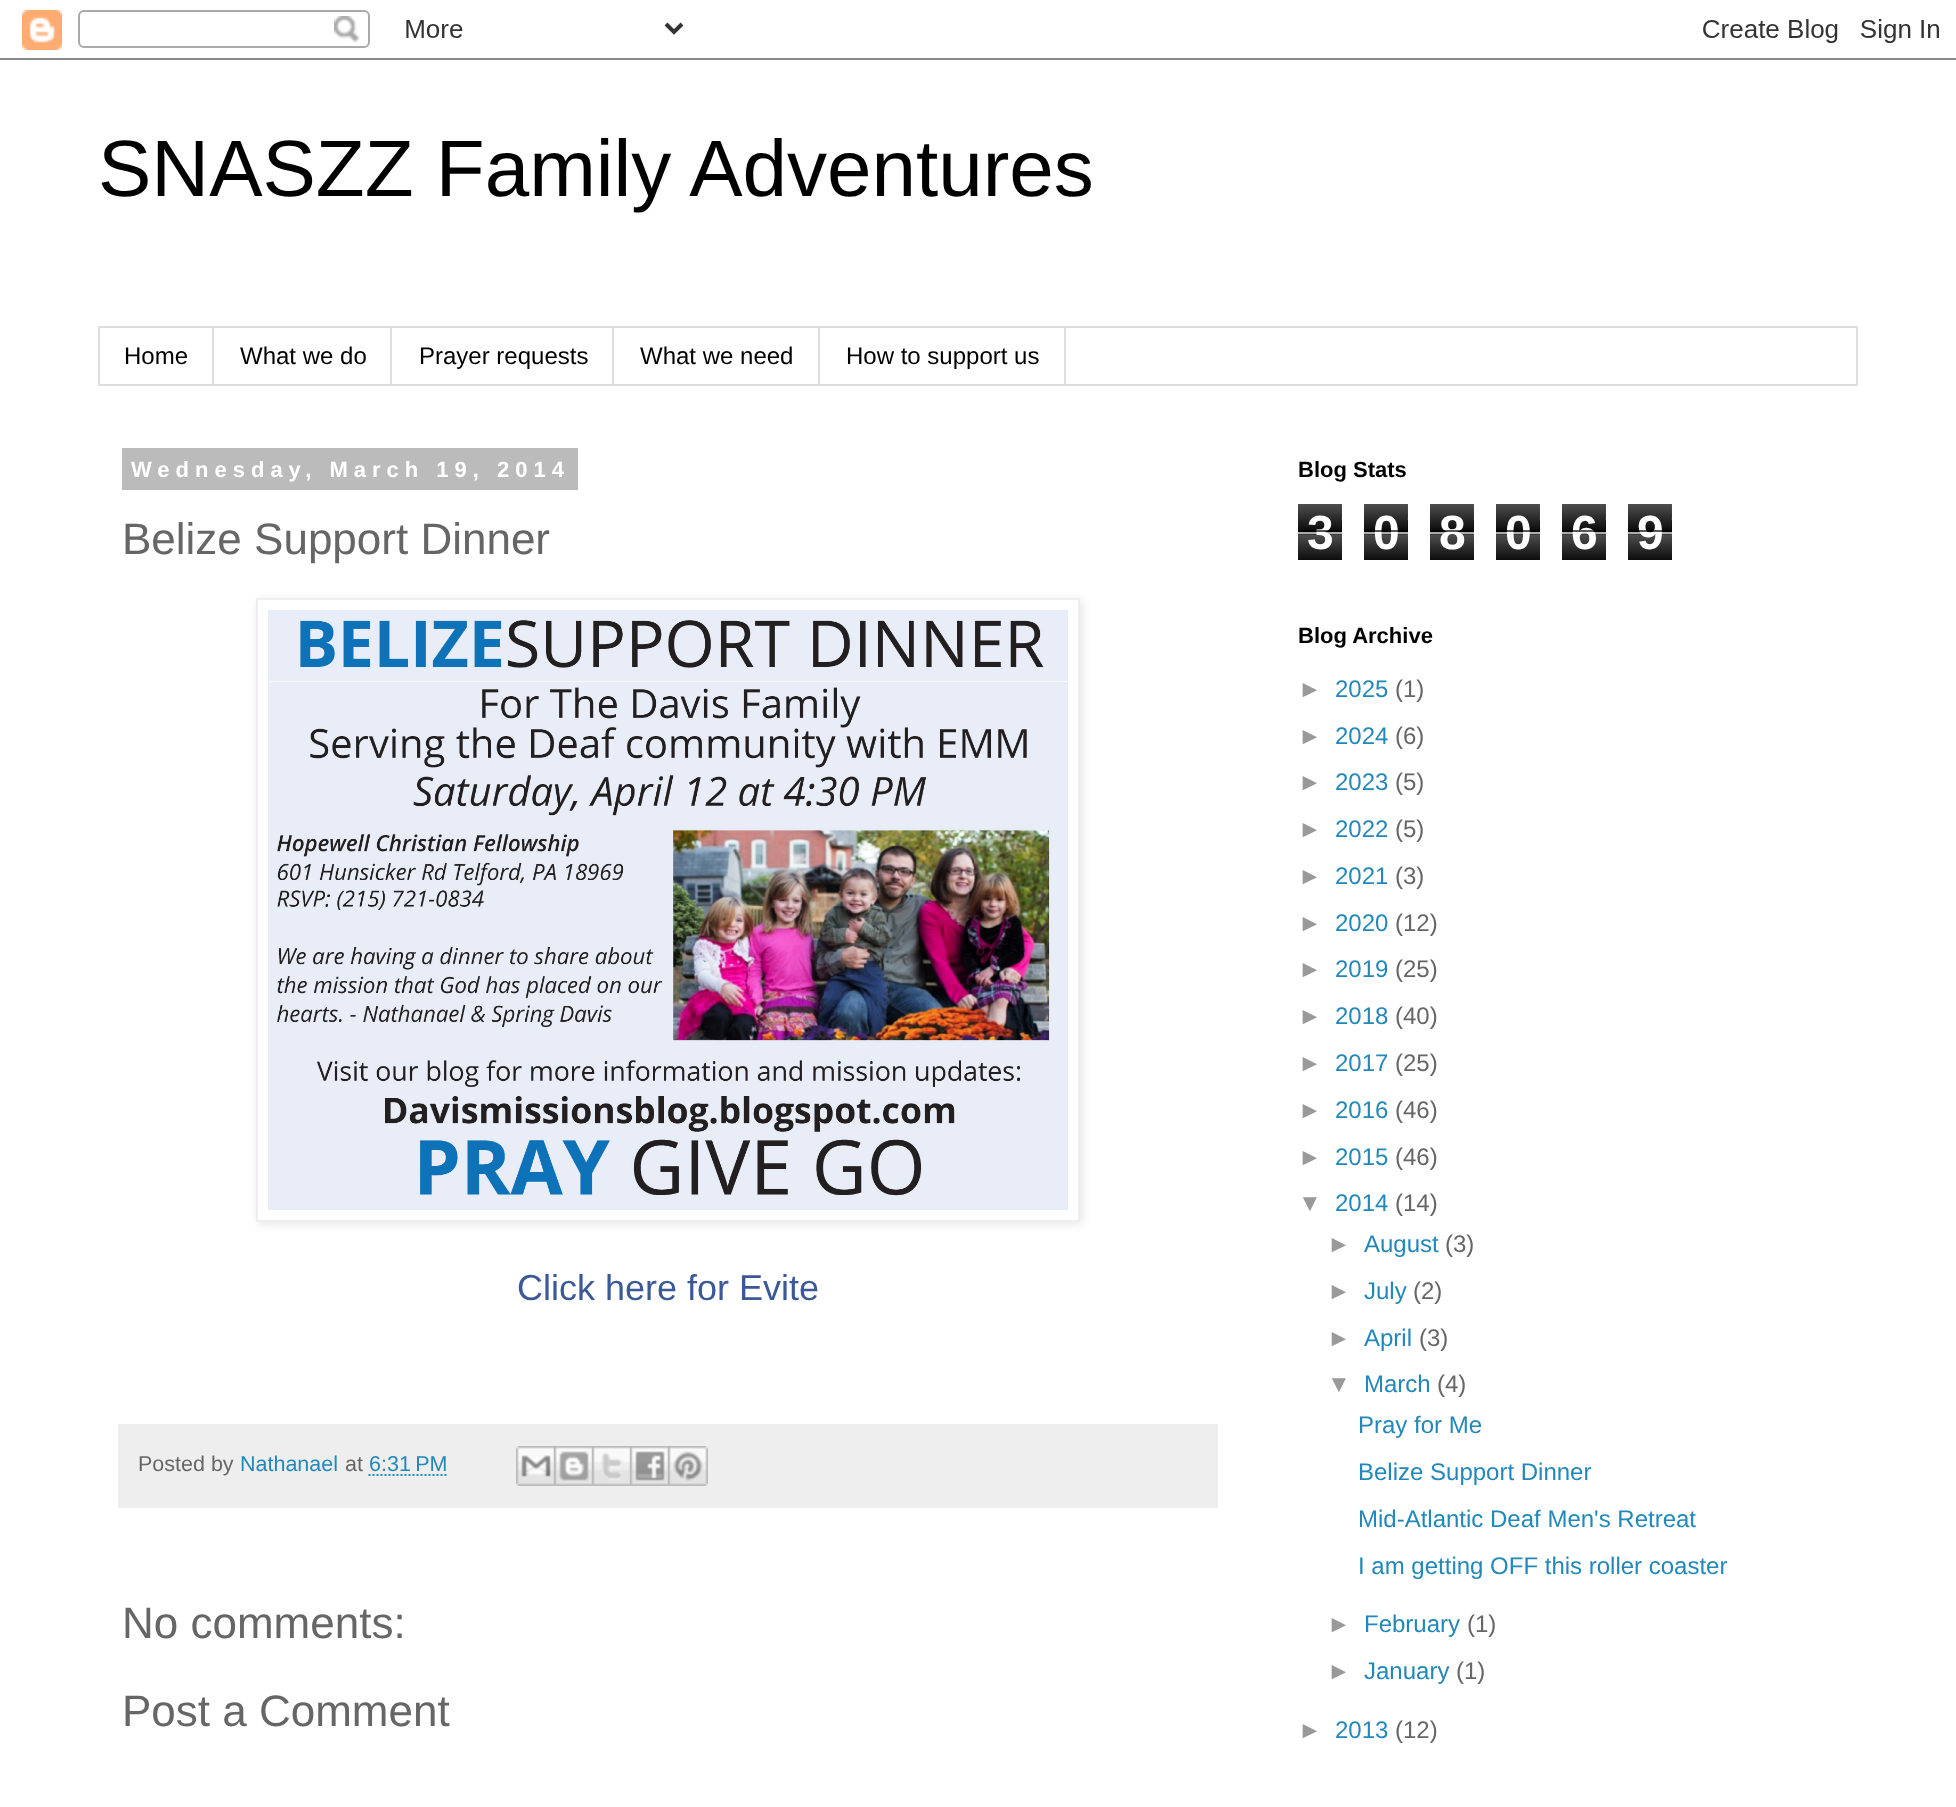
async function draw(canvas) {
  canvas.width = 1956;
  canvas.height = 1807;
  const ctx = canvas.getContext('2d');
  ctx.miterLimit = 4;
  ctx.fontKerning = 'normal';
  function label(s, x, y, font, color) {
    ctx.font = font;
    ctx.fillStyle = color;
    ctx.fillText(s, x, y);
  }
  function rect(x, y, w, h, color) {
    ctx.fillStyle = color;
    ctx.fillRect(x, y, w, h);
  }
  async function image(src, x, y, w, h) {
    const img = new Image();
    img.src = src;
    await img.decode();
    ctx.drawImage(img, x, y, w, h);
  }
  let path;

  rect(0, 0, 1956, 1807, '#fff');
  await image('assets/img1.png', 0, 10, 1956, 50);
  label('SNASZZ Family Adventures', 98, 196, '80px Liberation Sans', '#000');
  ctx.strokeStyle = '#ddd';
  ctx.lineWidth = 2;
  ctx.strokeRect(99, 327, 1758, 58);
  rect(212, 328, 2, 56, '#ddd');
  label('Home', 124, 364, '24px Liberation Sans', '#000');
  rect(390, 328, 2, 56, '#ddd');
  label('What we do', 240, 364, '24px Liberation Sans', '#000');
  rect(612, 328, 2, 56, '#ddd');
  label('Prayer requests', 419, 364, '24px Liberation Sans', '#000');
  rect(818, 328, 2, 56, '#ddd');
  label('What we need', 640, 364, '24px Liberation Sans', '#000');
  rect(1064, 328, 2, 56, '#ddd');
  label('How to support us', 846, 364, '24px Liberation Sans', '#000');
  rect(122, 448, 456, 42, '#bbb');
  ctx.letterSpacing = '6px';
  label('Wednesday, March 19, 2014', 131, 477, 'bold 22px Liberation Sans', '#fff');
  ctx.letterSpacing = '0px';
  label('Belize Support Dinner', 122, 554, '44px Liberation Sans', '#666');
  ctx.save();
  path = new Path2D('M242 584H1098V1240H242ZM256 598H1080V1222H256Z');
  ctx.clip(path, 'evenodd');
  ctx.fillStyle = '#0000001a';
  ctx.filter = 'blur(5px)';
  ctx.beginPath();
  ctx.rect(258, 600, 824, 624);
  ctx.fill();
  ctx.filter = 'none';
  ctx.restore();
  ctx.strokeStyle = '#eee';
  ctx.strokeRect(257, 599, 822, 622);
  await image('assets/img2.png', 268, 610, 800, 600);
  label('Click here for Evite', 517, 1300, '36px Liberation Sans', '#3b5998');
  rect(118, 1424, 1100, 84, '#eee');
  label('Posted by', 138, 1471, '21.5px Liberation Sans', '#666');
  label('Nathanael', 240, 1471, '21.5px Liberation Sans', '#28b');
  label('at', 345, 1471, '21.5px Liberation Sans', '#666');
  label('6:31 PM', 369, 1471, '21.5px Liberation Sans', '#28b');
  path = new Path2D('M368.5 1475H447.5');
  ctx.strokeStyle = '#28b';
  ctx.setLineDash([2, 2]);
  ctx.stroke(path);
  await image('assets/img3.png', 516, 1446, 38, 40);
  await image('assets/img4.png', 554, 1446, 38, 40);
  await image('assets/img5.png', 592, 1446, 38, 40);
  await image('assets/img6.png', 630, 1446, 38, 40);
  await image('assets/img7.png', 668, 1446, 40, 40);
  label('No comments:', 122, 1638, '44px Liberation Sans', '#666');
  label('Post a Comment', 122, 1726, '44px Liberation Sans', '#666');
  label('Blog Stats', 1298, 477, 'bold 22px Liberation Sans', '#000');
  await image('assets/img8.png', 1298, 504, 44, 56);
  label('3', 1307, 549, 'bold 48px Liberation Sans', '#fff');
  rect(1298, 530, 44, 2, '#000000a6');
  rect(1298, 532, 44, 2, '#ffffffa6');
  await image('assets/img8.png', 1364, 504, 44, 56);
  label('0', 1373, 549, 'bold 48px Liberation Sans', '#fff');
  rect(1364, 530, 44, 2, '#000000a6');
  rect(1364, 532, 44, 2, '#ffffffa6');
  await image('assets/img8.png', 1430, 504, 44, 56);
  label('8', 1439, 549, 'bold 48px Liberation Sans', '#fff');
  rect(1430, 530, 44, 2, '#000000a6');
  rect(1430, 532, 44, 2, '#ffffffa6');
  await image('assets/img8.png', 1496, 504, 44, 56);
  label('0', 1505, 549, 'bold 48px Liberation Sans', '#fff');
  rect(1496, 530, 44, 2, '#000000a6');
  rect(1496, 532, 44, 2, '#ffffffa6');
  await image('assets/img8.png', 1562, 504, 44, 56);
  label('6', 1571, 549, 'bold 48px Liberation Sans', '#fff');
  rect(1562, 530, 44, 2, '#000000a6');
  rect(1562, 532, 44, 2, '#ffffffa6');
  await image('assets/img8.png', 1628, 504, 44, 56);
  label('9', 1637, 549, 'bold 48px Liberation Sans', '#fff');
  rect(1628, 530, 44, 2, '#000000a6');
  rect(1628, 532, 44, 2, '#ffffffa6');
  label('Blog Archive', 1298, 643, 'bold 22px Liberation Sans', '#000');
  label('►', 1298, 697, '24px Liberation Sans', '#999');
  label('2025', 1335, 697, '24px Liberation Sans', '#28b');
  label('(1)', 1395, 697, '24px Liberation Sans', '#666');
  label('►', 1298, 744, '24px Liberation Sans', '#999');
  label('2024', 1335, 744, '24px Liberation Sans', '#28b');
  label('(6)', 1395, 744, '24px Liberation Sans', '#666');
  label('►', 1298, 790, '24px Liberation Sans', '#999');
  label('2023', 1335, 790, '24px Liberation Sans', '#28b');
  label('(5)', 1395, 790, '24px Liberation Sans', '#666');
  label('►', 1298, 837, '24px Liberation Sans', '#999');
  label('2022', 1335, 837, '24px Liberation Sans', '#28b');
  label('(5)', 1395, 837, '24px Liberation Sans', '#666');
  label('►', 1298, 884, '24px Liberation Sans', '#999');
  label('2021', 1335, 884, '24px Liberation Sans', '#28b');
  label('(3)', 1395, 884, '24px Liberation Sans', '#666');
  label('►', 1298, 931, '24px Liberation Sans', '#999');
  label('2020', 1335, 931, '24px Liberation Sans', '#28b');
  label('(12)', 1395, 931, '24px Liberation Sans', '#666');
  label('►', 1298, 977, '24px Liberation Sans', '#999');
  label('2019', 1335, 977, '24px Liberation Sans', '#28b');
  label('(25)', 1395, 977, '24px Liberation Sans', '#666');
  label('►', 1298, 1024, '24px Liberation Sans', '#999');
  label('2018', 1335, 1024, '24px Liberation Sans', '#28b');
  label('(40)', 1395, 1024, '24px Liberation Sans', '#666');
  label('►', 1298, 1071, '24px Liberation Sans', '#999');
  label('2017', 1335, 1071, '24px Liberation Sans', '#28b');
  label('(25)', 1395, 1071, '24px Liberation Sans', '#666');
  label('►', 1298, 1118, '24px Liberation Sans', '#999');
  label('2016', 1335, 1118, '24px Liberation Sans', '#28b');
  label('(46)', 1395, 1118, '24px Liberation Sans', '#666');
  label('►', 1298, 1165, '24px Liberation Sans', '#999');
  label('2015', 1335, 1165, '24px Liberation Sans', '#28b');
  label('(46)', 1395, 1165, '24px Liberation Sans', '#666');
  label('▼', 1298, 1211, '24px Liberation Sans', '#999');
  label('2014', 1335, 1211, '24px Liberation Sans', '#28b');
  label('(14)', 1395, 1211, '24px Liberation Sans', '#666');
  label('►', 1327, 1252, '24px Liberation Sans', '#999');
  label('August', 1364, 1252, '24px Liberation Sans', '#28b');
  label('(3)', 1445, 1252, '24px Liberation Sans', '#666');
  label('►', 1327, 1299, '24px Liberation Sans', '#999');
  label('July', 1364, 1299, '24px Liberation Sans', '#28b');
  label('(2)', 1413, 1299, '24px Liberation Sans', '#666');
  label('►', 1327, 1346, '24px Liberation Sans', '#999');
  label('April', 1364, 1346, '24px Liberation Sans', '#28b');
  label('(3)', 1419, 1346, '24px Liberation Sans', '#666');
  label('▼', 1327, 1392, '24px Liberation Sans', '#999');
  label('March', 1364, 1392, '24px Liberation Sans', '#28b');
  label('(4)', 1437, 1392, '24px Liberation Sans', '#666');
  label('Pray for Me', 1358, 1433, '24px Liberation Sans', '#28b');
  label('Belize Support Dinner', 1358, 1480, '24px Liberation Sans', '#28b');
  label('Mid-Atlantic Deaf Men\'s Retreat', 1358, 1527, '24px Liberation Sans', '#28b');
  label('I am getting OFF this roller coaster', 1358, 1574, '24px Liberation Sans', '#28b');
  label('►', 1327, 1632, '24px Liberation Sans', '#999');
  label('February', 1364, 1632, '24px Liberation Sans', '#28b');
  label('(1)', 1467, 1632, '24px Liberation Sans', '#666');
  label('►', 1327, 1679, '24px Liberation Sans', '#999');
  label('January', 1364, 1679, '24px Liberation Sans', '#28b');
  label('(1)', 1456, 1679, '24px Liberation Sans', '#666');
  label('►', 1298, 1738, '24px Liberation Sans', '#999');
  label('2013', 1335, 1738, '24px Liberation Sans', '#28b');
  label('(12)', 1395, 1738, '24px Liberation Sans', '#666');
}

draw(document.querySelector('canvas'));
